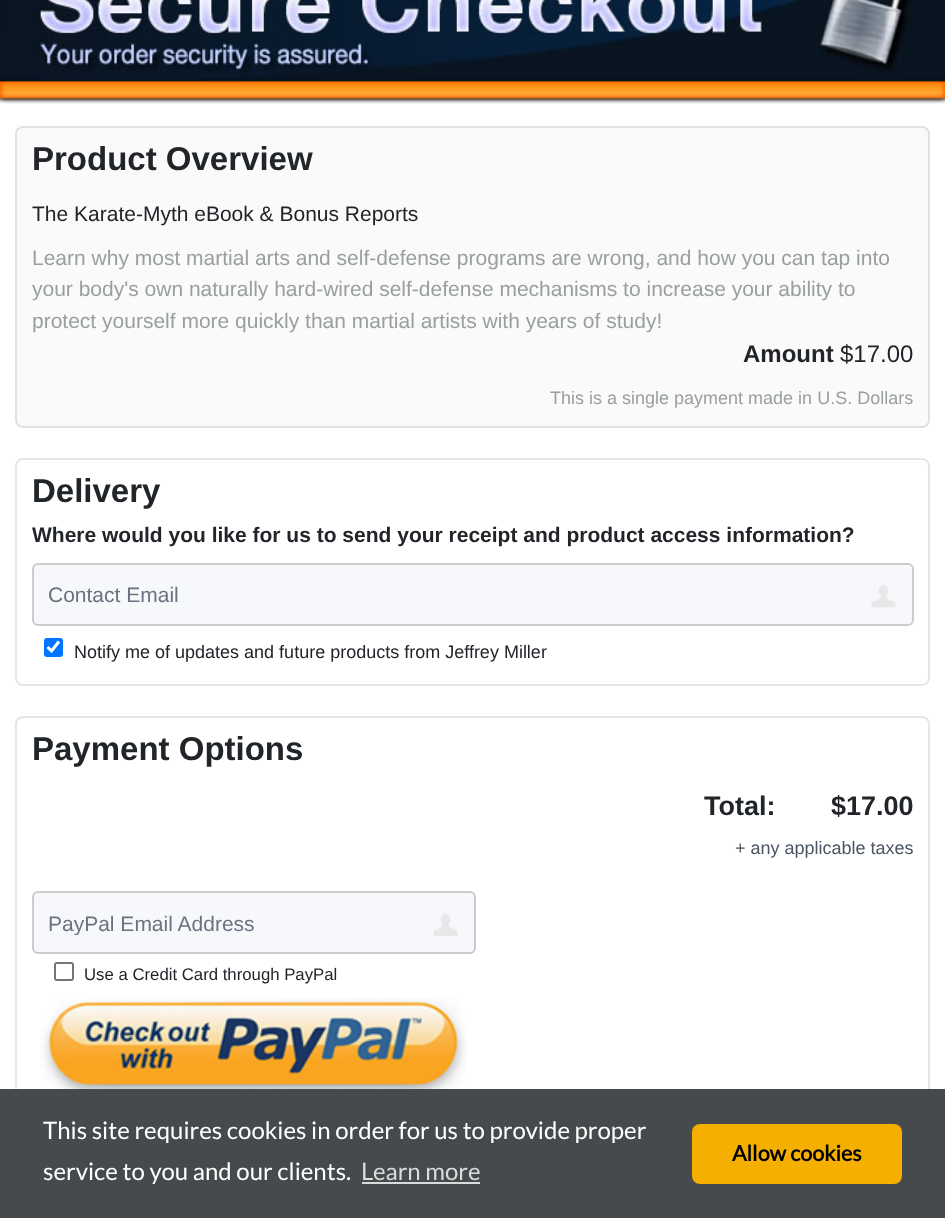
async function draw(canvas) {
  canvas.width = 945;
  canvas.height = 1218;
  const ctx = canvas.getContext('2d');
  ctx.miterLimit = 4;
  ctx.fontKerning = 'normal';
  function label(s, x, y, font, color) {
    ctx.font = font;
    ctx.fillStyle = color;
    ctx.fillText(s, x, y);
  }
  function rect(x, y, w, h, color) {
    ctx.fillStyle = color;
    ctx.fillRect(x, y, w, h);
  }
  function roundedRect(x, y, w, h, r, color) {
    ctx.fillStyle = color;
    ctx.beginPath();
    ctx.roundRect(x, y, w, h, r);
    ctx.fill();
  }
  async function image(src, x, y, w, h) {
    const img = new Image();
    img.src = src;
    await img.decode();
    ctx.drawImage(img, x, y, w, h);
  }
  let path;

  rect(0, 0, 945, 1218, '#fff');
  await image('assets/img1.png', 0, 0, 945, 104);
  ctx.fillStyle = '#fafafa';
  ctx.beginPath();
  ctx.roundRect(16, 127, 913, 300, 7);
  ctx.fill();
  ctx.strokeStyle = '#e1e1e1';
  ctx.lineWidth = 2;
  ctx.stroke();
  label('Product Overview', 32, 170, 'bold 33px Liberation Sans', '#212529');
  label('The Karate-Myth eBook & Bonus Reports', 32, 221, '21px Liberation Sans', '#212529');
  label('Learn why most martial arts and self-defense programs are wrong, and how you can tap into', 32, 265, '21px Liberation Sans', '#999fa0');
  label('your body\'s own naturally hard-wired self-defense mechanisms to increase your ability to', 32, 296, '21px Liberation Sans', '#999fa0');
  label('protect yourself more quickly than martial artists with years of study!', 32, 328, '21px Liberation Sans', '#999fa0');
  label('Amount', 743, 362, 'bold 24px Liberation Sans', '#212529');
  label('$17.00', 840, 362, '24px Liberation Sans', '#212529');
  label('This is a single payment made in U.S. Dollars', 550, 404, '18px Liberation Sans', '#999fa0');
  ctx.beginPath();
  ctx.roundRect(16, 459, 913, 226, 7);
  ctx.strokeStyle = '#e6e6e6';
  ctx.stroke();
  label('Delivery', 32, 502, 'bold 33px Liberation Sans', '#212529');
  label('Where would you like for us to send your receipt and product access information?', 32, 542, 'bold 21px Liberation Sans', '#212529');
  roundedRect(32, 563, 882, 63, 6, '#f7f8fc');
  await image('assets/img2.png', 871, 585, 25, 23);
  ctx.beginPath();
  ctx.roundRect(33, 564, 880, 61, 5);
  ctx.strokeStyle = '#ccc';
  ctx.stroke();
  label('Contact Email', 48, 602, '21px Liberation Sans', '#6b7280');
  roundedRect(44, 638, 19, 19, 3, '#0075ff');
  path = new Path2D('M47.5 647L51.5 651L59 641.5');
  ctx.strokeStyle = '#fff';
  ctx.lineWidth = 3.1;
  ctx.stroke(path);
  label('Notify me of updates and future products from Jeffrey Miller', 74, 658, '18px Liberation Sans', '#212529');
  ctx.beginPath();
  ctx.roundRect(16, 717, 913, 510, 7);
  ctx.strokeStyle = '#e6e6e6';
  ctx.lineWidth = 2;
  ctx.stroke();
  label('Payment Options', 32, 760, 'bold 33px Liberation Sans', '#212529');
  label('Total:', 704, 815, 'bold 27px Liberation Sans', '#212529');
  label('$17.00', 831, 815, 'bold 27px Liberation Sans', '#212529');
  label('+ any applicable taxes', 735, 854, '18px Liberation Sans', '#4b5563');
  roundedRect(32, 891, 444, 63, 6, '#f7f8fc');
  await image('assets/img3.png', 433, 913, 25, 23);
  ctx.beginPath();
  ctx.roundRect(33, 892, 442, 61, 5);
  ctx.strokeStyle = '#ccc';
  ctx.stroke();
  ctx.save();
  ctx.beginPath();
  ctx.rect(48, 911, 411, 24);
  ctx.clip();
  label('PayPal Email Address', 48, 931, '21px Liberation Sans', '#6b7280');
  ctx.restore();
  ctx.beginPath();
  ctx.roundRect(55, 963, 18, 17, 2);
  ctx.strokeStyle = '#767676';
  ctx.stroke();
  label('Use a Credit Card through PayPal', 84, 980, '16.75px Liberation Sans', '#212529');
  await image('assets/img4.png', 40, 997, 427, 92);
  rect(0, 1089, 945, 129, '#464a4c');
  label('This site requires cookies in order for us to provide proper', 43, 1139, '24px Lato', '#fff');
  label('service to you and our clients.', 43, 1180, '24px Lato', '#fff');
  label('Learn more', 361, 1180, '24px Lato', '#dadbdb');
  rect(362, 1182, 118, 2, '#dadbdb');
  roundedRect(692, 1124, 210, 60, 8, '#f5af01');
  label('Allow cookies', 732, 1161, 'bold 21.5px Lato', '#000');
}

draw(document.querySelector('canvas'));
